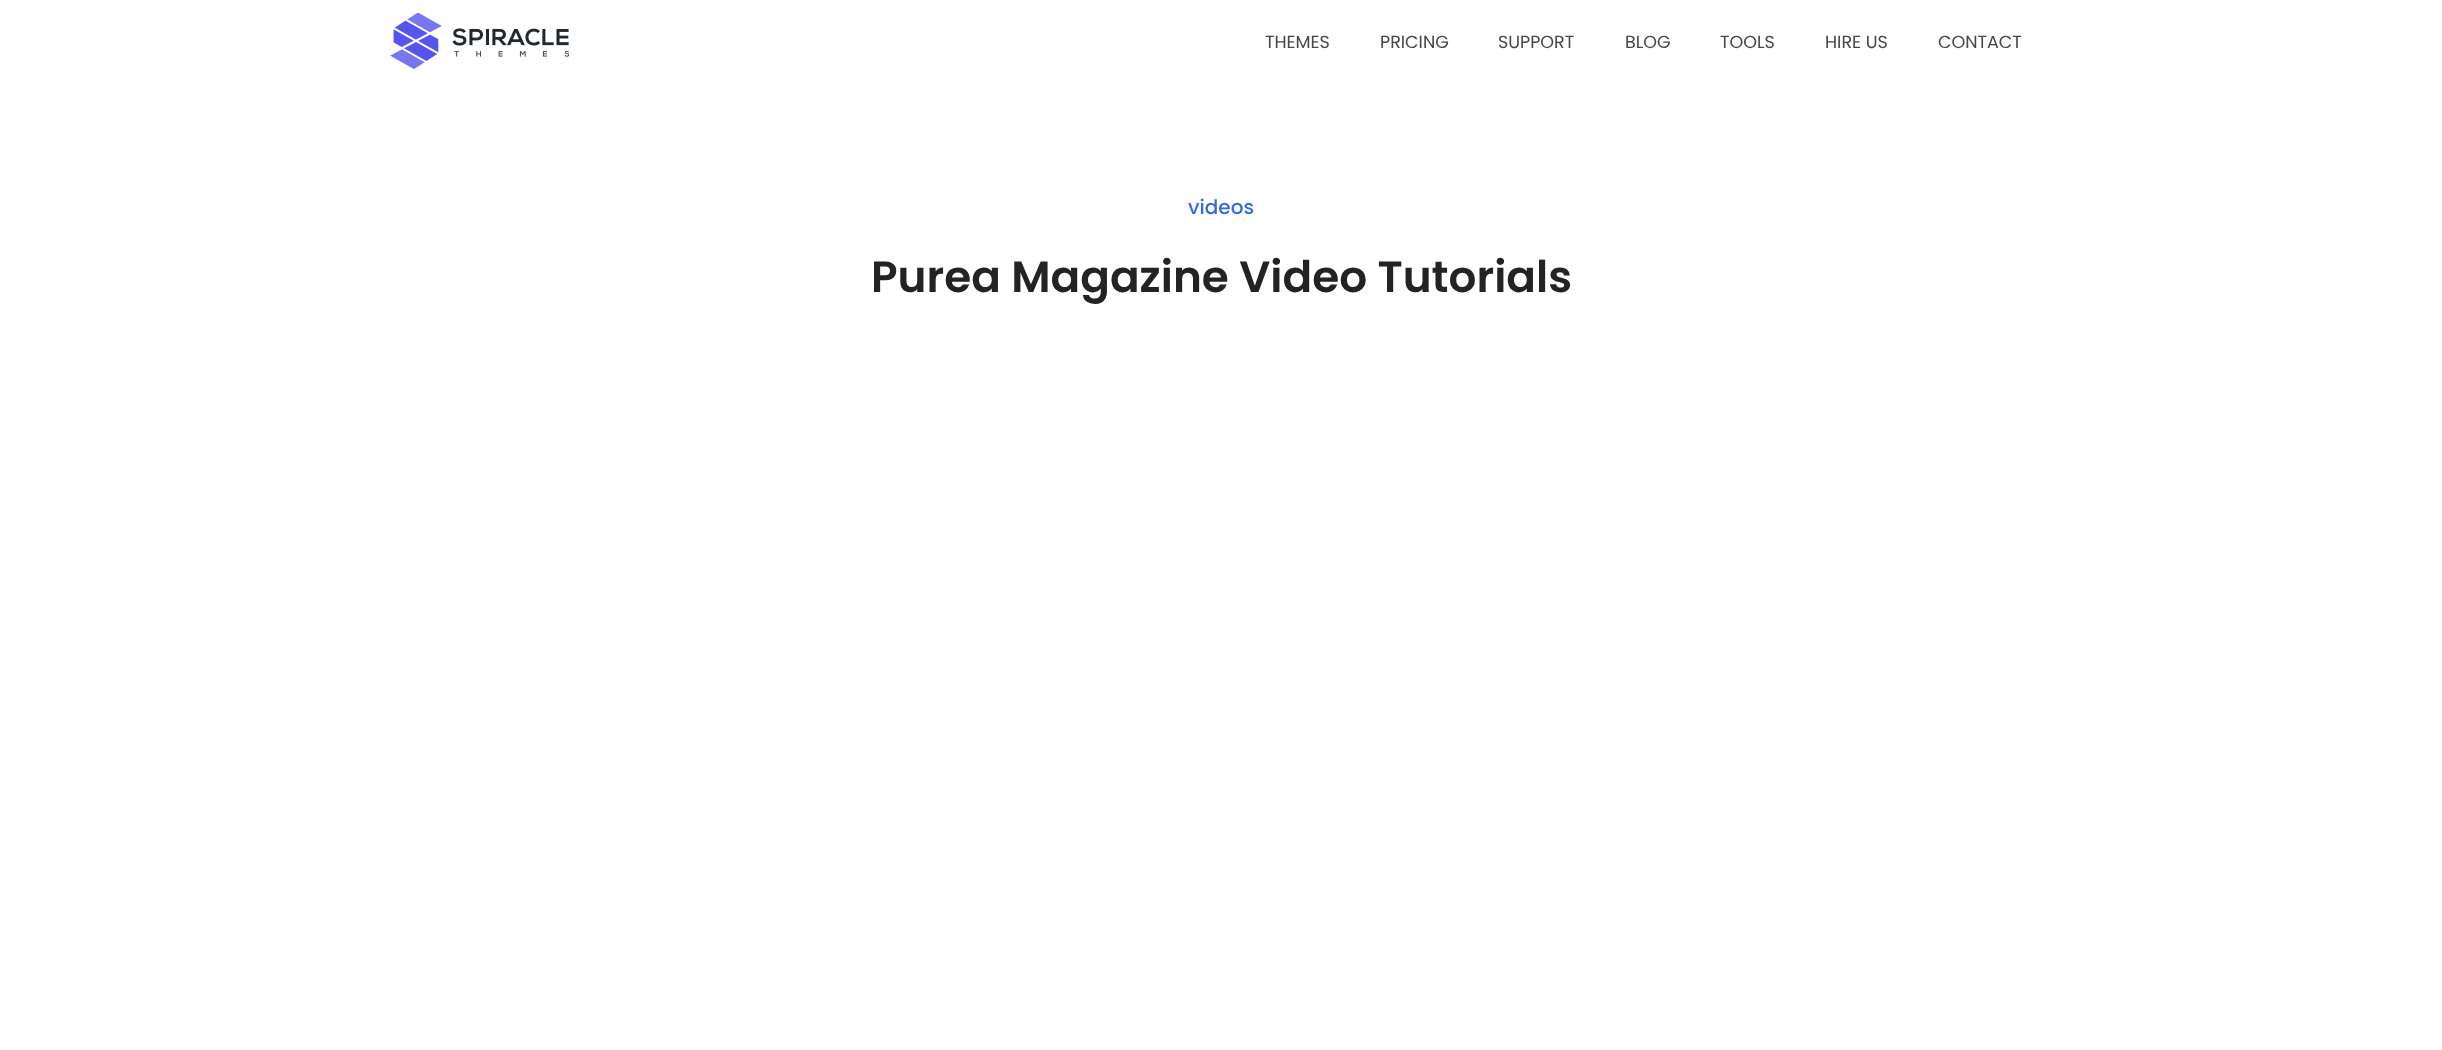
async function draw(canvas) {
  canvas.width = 2442;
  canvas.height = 1050;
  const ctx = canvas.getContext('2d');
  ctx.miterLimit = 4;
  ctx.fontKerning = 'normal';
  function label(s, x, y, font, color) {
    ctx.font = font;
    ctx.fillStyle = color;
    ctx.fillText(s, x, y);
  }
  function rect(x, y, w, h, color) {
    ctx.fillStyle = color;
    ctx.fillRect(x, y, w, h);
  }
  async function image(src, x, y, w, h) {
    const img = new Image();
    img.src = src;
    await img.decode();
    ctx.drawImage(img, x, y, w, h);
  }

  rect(0, 0, 2442, 1050, '#fff');
  await image('assets/img1.png', 390, 13, 179, 56);
  label('THEMES', 1265, 48, '17.5px Poppins', '#464646');
  label('PRICING', 1380, 48, '17.5px Poppins', '#464646');
  label('SUPPORT', 1498, 48, '17.5px Poppins', '#464646');
  label('BLOG', 1625, 48, '17.5px Poppins', '#464646');
  label('TOOLS', 1720, 48, '17.5px Poppins', '#464646');
  label('HIRE US', 1825, 48, '17.5px Poppins', '#464646');
  label('CONTACT', 1938, 48, '17.5px Poppins', '#464646');
  label('videos', 1188, 214, '500 20px Poppins', '#356ce0');
  label('Purea Magazine Video Tutorials', 871, 292, '600 43.75px Poppins', '#242323');
}

draw(document.querySelector('canvas'));
